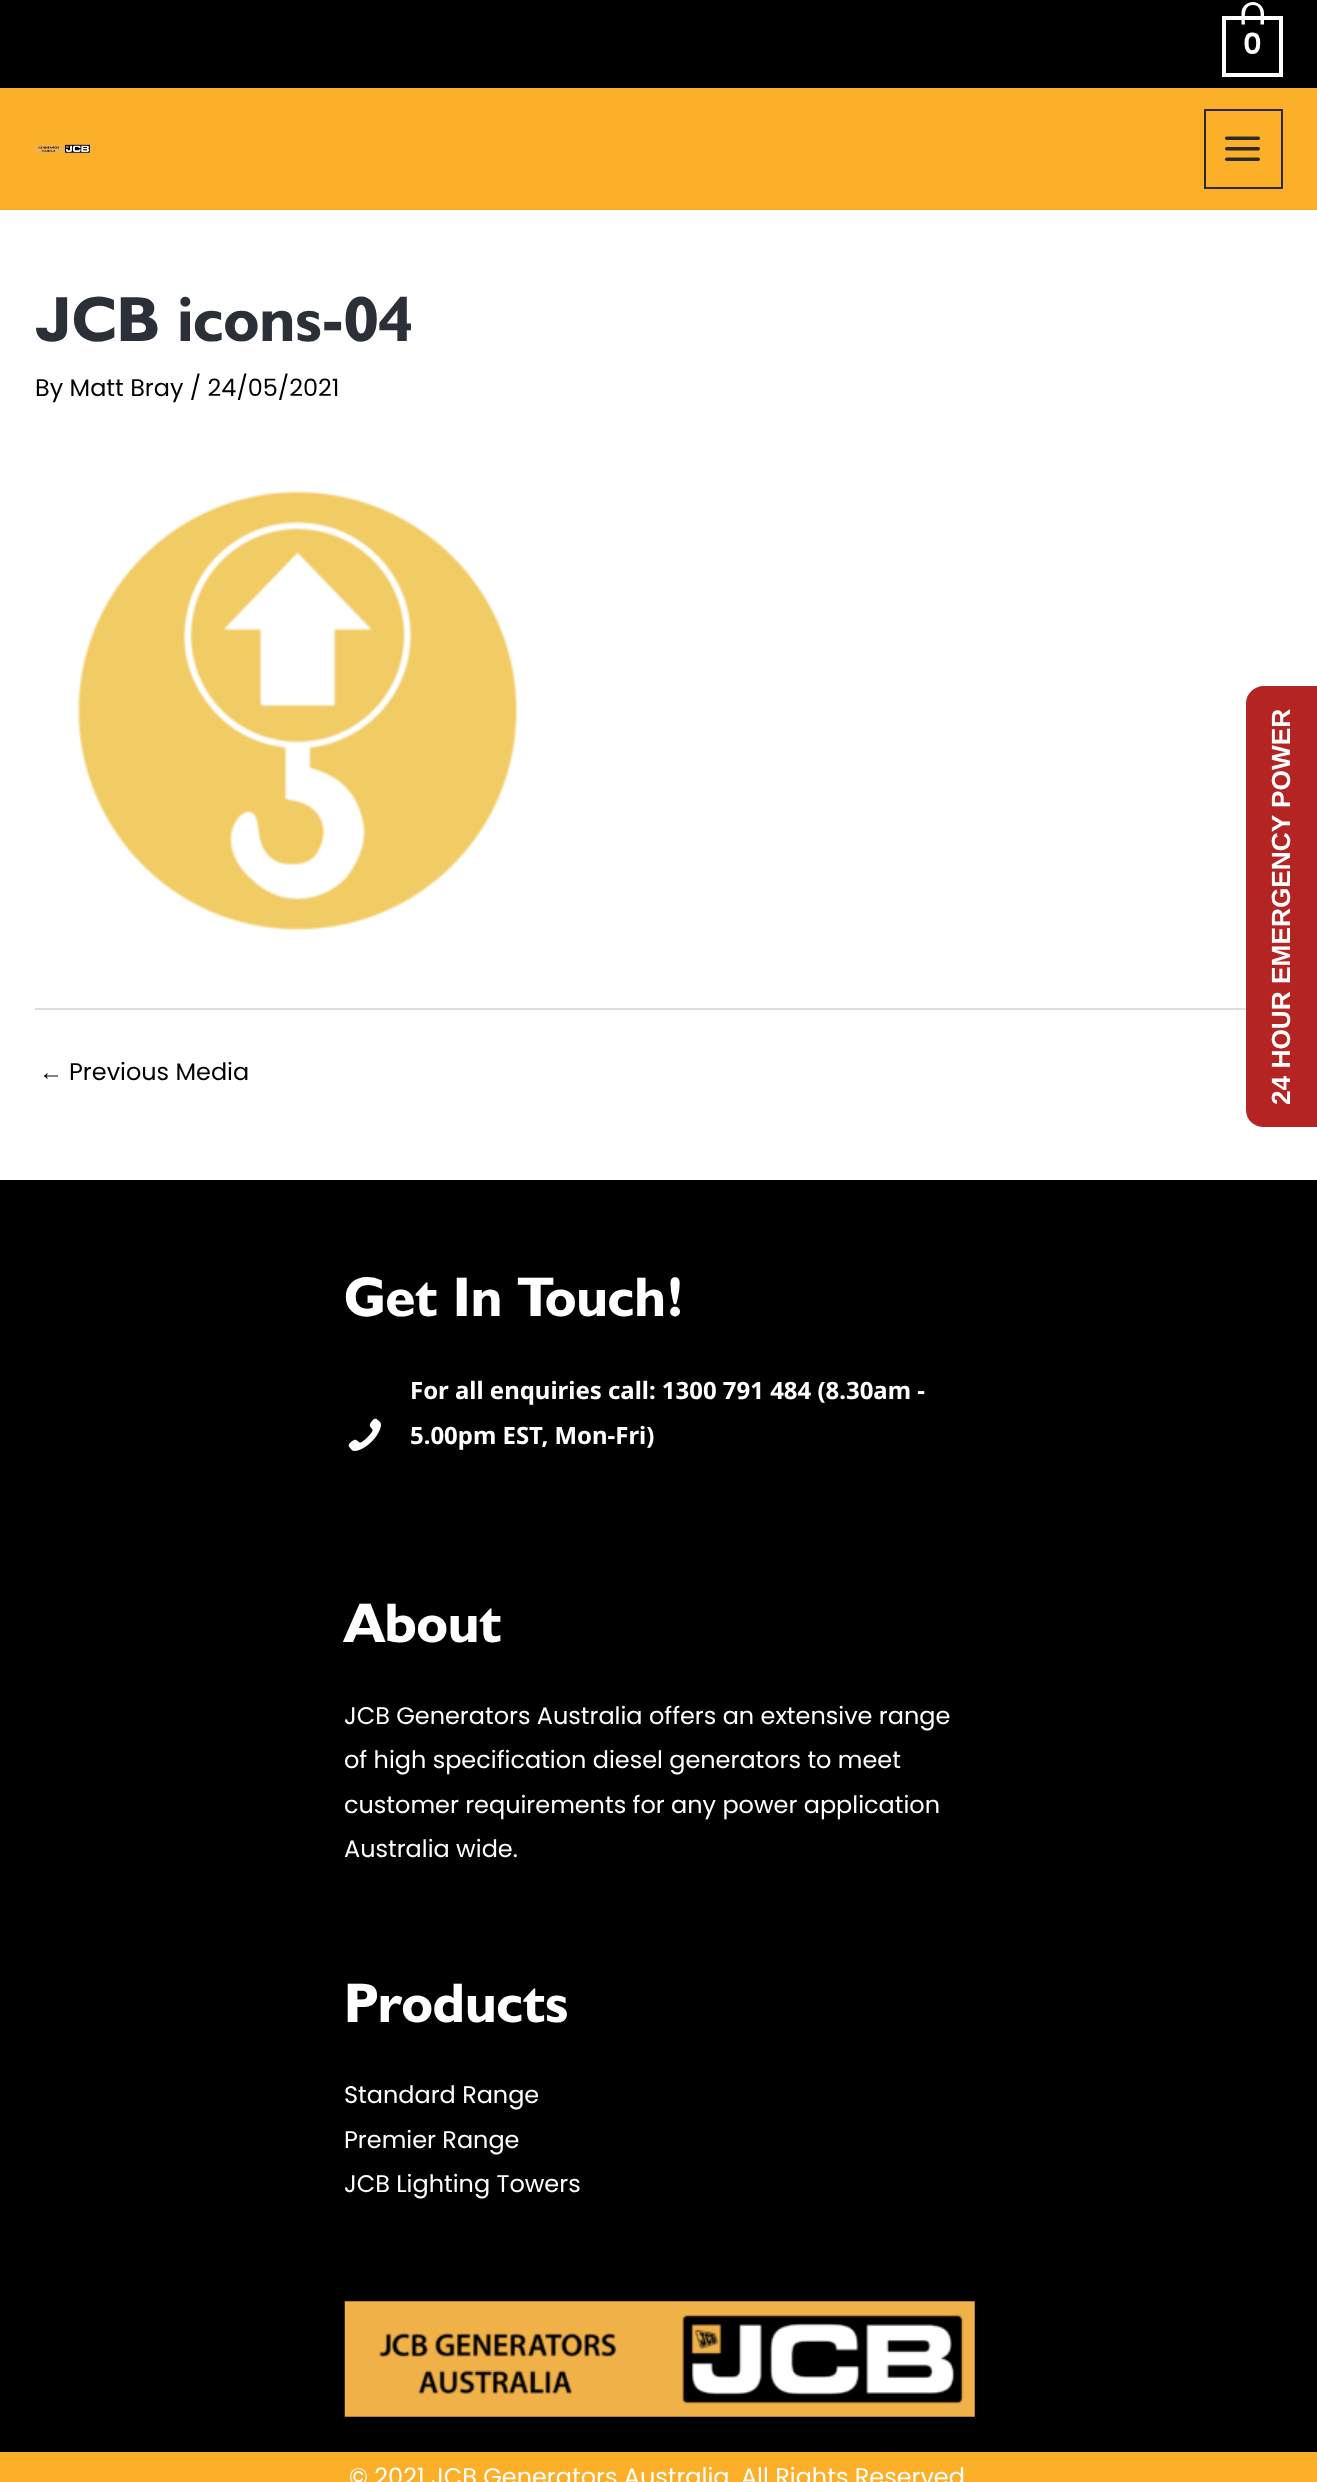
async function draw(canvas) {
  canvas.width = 1317;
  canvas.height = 2482;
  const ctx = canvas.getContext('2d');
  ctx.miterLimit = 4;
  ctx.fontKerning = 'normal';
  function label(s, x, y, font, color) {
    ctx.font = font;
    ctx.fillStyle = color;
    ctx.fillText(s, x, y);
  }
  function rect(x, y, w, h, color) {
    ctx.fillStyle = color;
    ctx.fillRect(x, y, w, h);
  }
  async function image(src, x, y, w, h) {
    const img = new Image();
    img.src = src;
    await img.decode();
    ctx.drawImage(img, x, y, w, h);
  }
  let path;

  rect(0, 0, 1317, 2482, '#fff');
  rect(0, 0, 1317, 88, '#000');
  ctx.strokeStyle = '#fff';
  ctx.lineWidth = 4;
  ctx.strokeRect(1224, 18, 57, 57);
  ctx.fillStyle = '#fff';
  path = new Path2D('M1253 2C1259 2 1264 7 1264 13V24.5H1241.5V13C1241.5 7 1246.5 2 1253 2ZM1253 5C1263 5 1260.5 18 1260.5 24.5H1245C1245 18 1243 5 1253 5Z');
  ctx.fill(path, 'evenodd');
  label('0', 1243, 54, '600 29px Poppins', '#fff');
  rect(0, 88, 1317, 122, '#fcaf28');
  await image('assets/img1.png', 35, 143, 56, 11);
  ctx.strokeStyle = '#2a2a2a';
  ctx.lineWidth = 2;
  ctx.strokeRect(1205, 110, 77, 78);
  await image('assets/img2.png', 1225, 136, 35, 25);
  label('JCB icons-04', 35, 341, 'bold 64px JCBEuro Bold', '#2b2f38');
  label('By Matt Bray / 24/05/2021', 35, 396, '23.95px Poppins', '#000');
  await image('assets/img3.png', 77, 490, 442, 441);
  rect(35, 1008, 1211, 2, '#ddd');
  label('←', 39, 1080, '23.95px Liberation Sans', '#000');
  label('Previous Media', 69, 1080, '23.95px Poppins', '#000');
  rect(0, 1180, 1317, 1272, '#000');
  label('Get In Touch!', 344, 1316, 'bold 56px JCBEuro Bold', '#fff');
  await image('assets/img4.png', 348, 1418, 33, 33);
  label('For all enquiries call: 1300 791 484 (8.30am -', 410, 1399, 'bold 23.95px Noto Sans', '#fff');
  label('5.00pm EST, Mon-Fri)', 410, 1444, 'bold 23.95px Noto Sans', '#fff');
  label('About', 344, 1642, 'bold 56px JCBEuro Bold', '#fff');
  label('JCB Generators Australia offers an extensive range', 344, 1724, '23.95px Poppins', '#fff');
  label('of high specification diesel generators to meet', 344, 1768, '23.95px Poppins', '#fff');
  label('customer requirements for any power application', 344, 1813, '23.95px Poppins', '#fff');
  label('Australia wide.', 344, 1857, '23.95px Poppins', '#fff');
  label('Products', 344, 2022, 'bold 56px JCBEuro Bold', '#fff');
  label('Standard Range', 344, 2103, '23.95px Poppins', '#fff');
  label('Premier Range', 344, 2148, '23.95px Poppins', '#fff');
  label('JCB Lighting Towers', 344, 2192, '23.95px Poppins', '#fff');
  await image('assets/img5.png', 344, 2301, 631, 116);
  rect(0, 2452, 1317, 30, '#fcaf28');
  label('© 2021 JCB Generators Australia. All Rights Reserved', 349, 2485, '23.95px Poppins', '#fff');
  ctx.fillStyle = '#b32422';
  path = new Path2D('M1246 1110V703C1246 694 1254 686 1264 686H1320V1127H1264C1254 1127 1246 1120 1246 1110Z');
  ctx.fill(path);
  ctx.font = 'bold 26.25px Liberation Sans';
  ctx.fillStyle = '#fff';
  ctx.save();
  ctx.translate(1290, 1105);
  ctx.rotate(-90 * Math.PI / 180);
  ctx.fillText('24 HOUR EMERGENCY POWER', 0, 0);
  ctx.restore();
}

draw(document.querySelector('canvas'));
